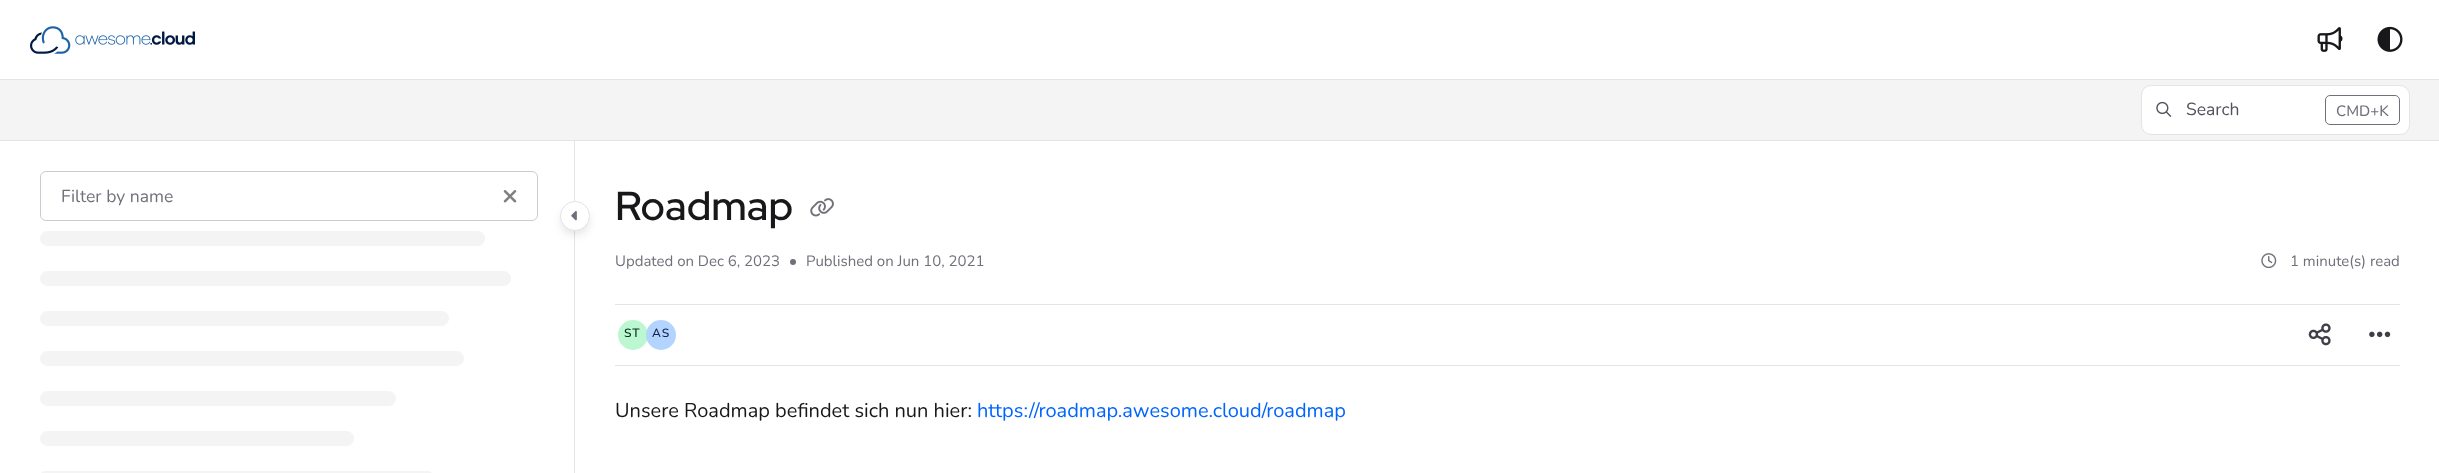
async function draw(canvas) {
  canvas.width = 2439;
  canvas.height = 473;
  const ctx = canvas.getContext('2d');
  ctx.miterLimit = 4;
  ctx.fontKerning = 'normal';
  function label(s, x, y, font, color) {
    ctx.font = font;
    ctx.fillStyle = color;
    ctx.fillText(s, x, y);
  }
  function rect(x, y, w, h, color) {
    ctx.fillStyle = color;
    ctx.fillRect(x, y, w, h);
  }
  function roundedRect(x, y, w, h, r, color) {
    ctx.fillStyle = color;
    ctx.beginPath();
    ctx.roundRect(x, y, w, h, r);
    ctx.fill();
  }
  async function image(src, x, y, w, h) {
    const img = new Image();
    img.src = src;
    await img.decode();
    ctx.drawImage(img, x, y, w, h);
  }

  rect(0, 0, 2439, 473, '#fff');
  await image('assets/img1.png', 30, 26, 165, 28);
  await image('assets/img2.png', 2317, 27, 26, 25);
  await image('assets/img3.png', 2377, 26, 26, 26);
  rect(0, 79, 2439, 1, '#e4e4e7');
  rect(0, 140, 2439, 1, '#e4e4e7');
  rect(0, 80, 2439, 60, '#f4f4f5');
  ctx.fillStyle = '#fff';
  ctx.beginPath();
  ctx.roundRect(2141.5, 85.5, 268, 49, 9.5);
  ctx.fill();
  ctx.strokeStyle = '#e4e4e7';
  ctx.stroke();
  await image('assets/img4.png', 2156, 101, 16, 16);
  label('Search', 2186, 115, '17.5px Nunito', '#51525c');
  ctx.beginPath();
  ctx.roundRect(2325.5, 95.5, 74, 29, 4.5);
  ctx.strokeStyle = '#70707a';
  ctx.stroke();
  label('CMD+K', 2336, 116, '500 15px Nunito', '#70707a');
  rect(574, 141, 1, 332, '#e4e4e7');
  ctx.beginPath();
  ctx.roundRect(40.5, 171.5, 497, 49, 5.5);
  ctx.strokeStyle = '#ccc';
  ctx.stroke();
  label('Filter by name', 61, 202, '17.5px Nunito', '#70707a');
  await image('assets/img5.png', 503, 190, 14, 13);
  ctx.fillStyle = '#0000001a';
  ctx.filter = 'blur(4px)';
  ctx.beginPath();
  ctx.roundRect(561, 208, 28, 27, 13.5);
  ctx.fill();
  ctx.filter = 'none';
  ctx.fillStyle = '#fff';
  ctx.beginPath();
  ctx.arc(575, 216, 14.5, 0, 2 * Math.PI);
  ctx.fill();
  ctx.strokeStyle = '#e4e4e7';
  ctx.stroke();
  await image('assets/img6.png', 571, 211, 6, 10);
  roundedRect(40, 231, 445, 15, 7.5, '#f4f4f4');
  roundedRect(40, 271, 471, 15, 7.5, '#f4f4f4');
  roundedRect(40, 311, 409, 15, 7.5, '#f4f4f4');
  roundedRect(40, 351, 424, 15, 7.5, '#f4f4f4');
  roundedRect(40, 391, 356, 15, 7.5, '#f4f4f4');
  roundedRect(40, 431, 314, 15, 7.5, '#f4f4f4');
  roundedRect(40, 471, 393, 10, 7.5, '#f4f4f4');
  label('Roadmap', 615, 220, '600 40.5px Red Hat Display', '#18181b');
  await image('assets/img7.png', 810, 198, 24, 19);
  label('Updated on Dec 6, 2023', 615, 266, '15px Nunito', '#70707a');
  ctx.beginPath();
  ctx.arc(793, 262, 3, 0, 2 * Math.PI);
  ctx.fill();
  label('Published on Jun 10, 2021', 806, 266, '15px Nunito', '#70707a');
  await image('assets/img8.png', 2261, 253, 16, 16);
  label('1 minute(s) read', 2290, 266, '15px Nunito', '#70707a');
  rect(615, 304, 1785, 1, '#e4e4e7');
  rect(615, 365, 1785, 1, '#e4e4e7');
  ctx.fillStyle = '#bbf7d0';
  ctx.beginPath();
  ctx.arc(633, 335, 15, 0, 2 * Math.PI);
  ctx.fill();
  ctx.letterSpacing = '1px';
  label('ST', 624, 337, '600 12px Nunito', '#052e16');
  ctx.fillStyle = '#b3d4ff';
  ctx.beginPath();
  ctx.arc(661, 335, 15, 0, 2 * Math.PI);
  ctx.fill();
  label('AS', 652, 337, '600 12px Nunito', '#172554');
  await image('assets/img9.png', 2308, 323, 23, 23);
  await image('assets/img10.png', 2369, 331, 22, 7);
  ctx.letterSpacing = '0px';
  label('Unsere Roadmap befindet sich nun hier:', 615, 417, '20px Nunito', '#18181b');
  label('https://roadmap.awesome.cloud/roadmap', 977, 417, '20px Nunito', '#0065ff');
}

draw(document.querySelector('canvas'));
